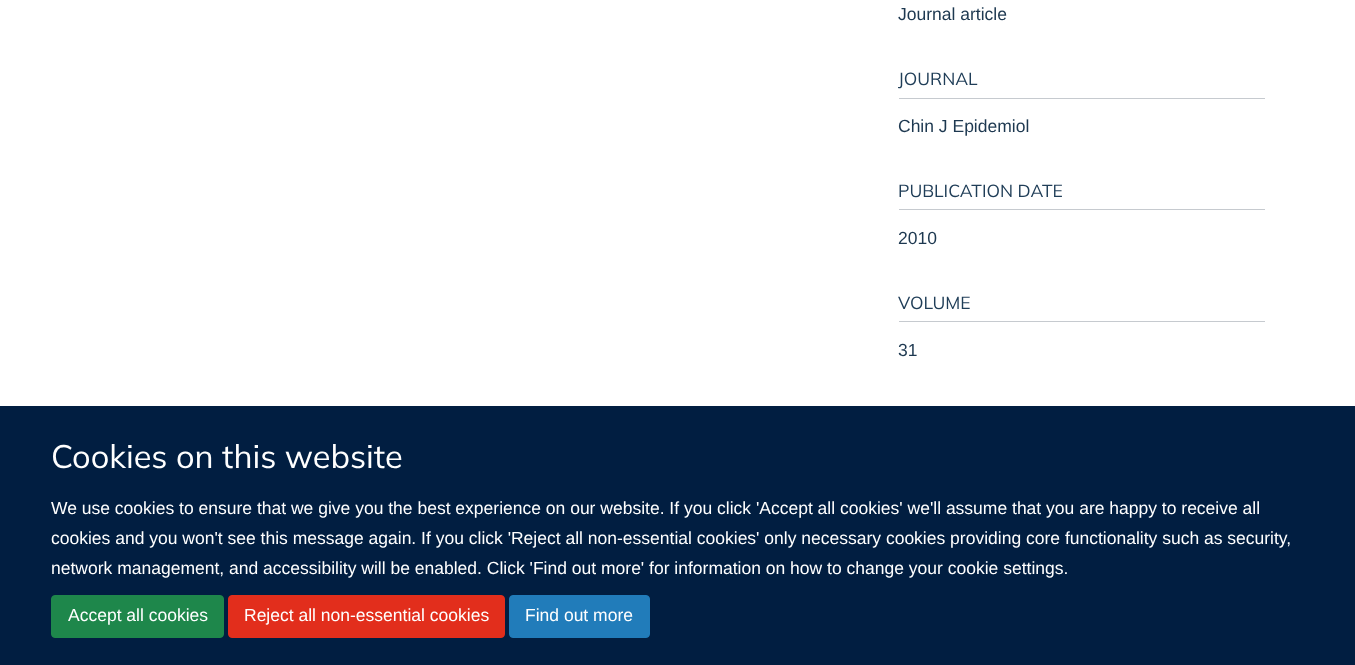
async function draw(canvas) {
  canvas.width = 1355;
  canvas.height = 665;
  const ctx = canvas.getContext('2d');
  ctx.miterLimit = 4;
  ctx.fontKerning = 'normal';
  function label(s, x, y, font, color) {
    ctx.font = font;
    ctx.fillStyle = color;
    ctx.fillText(s, x, y);
  }
  function rect(x, y, w, h, color) {
    ctx.fillStyle = color;
    ctx.fillRect(x, y, w, h);
  }

  rect(0, 0, 1355, 665, '#fff');
  label('Journal article', 898, 20, '17.5px Liberation Sans', '#1d3850');
  rect(899, 98, 366, 1, '#c6cacf');
  label('JOURNAL', 898, 85, '17.5px Mulish', '#203e58');
  label('Chin J Epidemiol', 898, 132, '17.5px Liberation Sans', '#1d3850');
  rect(899, 209, 366, 1, '#c6cacf');
  label('PUBLICATION DATE', 898, 197, '17.5px Mulish', '#203e58');
  label('2010', 898, 244, '17.5px Liberation Sans', '#1d3850');
  rect(899, 321, 366, 1, '#c6cacf');
  label('VOLUME', 898, 309, '17.5px Mulish', '#203e58');
  label('31', 898, 356, '17.5px Liberation Sans', '#1d3850');
  rect(0, 406, 1355, 259, '#011e41');
  label('Cookies on this website', 51, 468, '32.5px Mulish', '#fff');
  label('We use cookies to ensure that we give you the best experience on our website. If you click \'Accept all cookies\' we\'ll assume that you are happy to receive all', 51, 514, '17.5px Liberation Sans', '#fff');
  label('cookies and you won\'t see this message again. If you click \'Reject all non-essential cookies\' only necessary cookies providing core functionality such as security,', 51, 544, '17.5px Liberation Sans', '#fff');
  label('network management, and accessibility will be enabled. Click \'Find out more\' for information on how to change your cookie settings.', 51, 574, '17.5px Liberation Sans', '#fff');
  ctx.fillStyle = '#1e874b';
  ctx.beginPath();
  ctx.roundRect(51.5, 595.5, 172, 42, 3.5);
  ctx.fill();
  ctx.strokeStyle = '#1e874b';
  ctx.stroke();
  label('Accept all cookies', 68, 621, '17.5px Liberation Sans', '#fff');
  ctx.fillStyle = '#e22e1c';
  ctx.beginPath();
  ctx.roundRect(228.5, 595.5, 276, 42, 3.5);
  ctx.fill();
  ctx.strokeStyle = '#e22e1c';
  ctx.stroke();
  label('Reject all non-essential cookies', 244, 621, '17.5px Liberation Sans', '#fff');
  ctx.fillStyle = '#217cba';
  ctx.beginPath();
  ctx.roundRect(509.5, 595.5, 140, 42, 3.5);
  ctx.fill();
  ctx.strokeStyle = '#217cba';
  ctx.stroke();
  label('Find out more', 525, 621, '17.5px Liberation Sans', '#fff');
}

draw(document.querySelector('canvas'));
